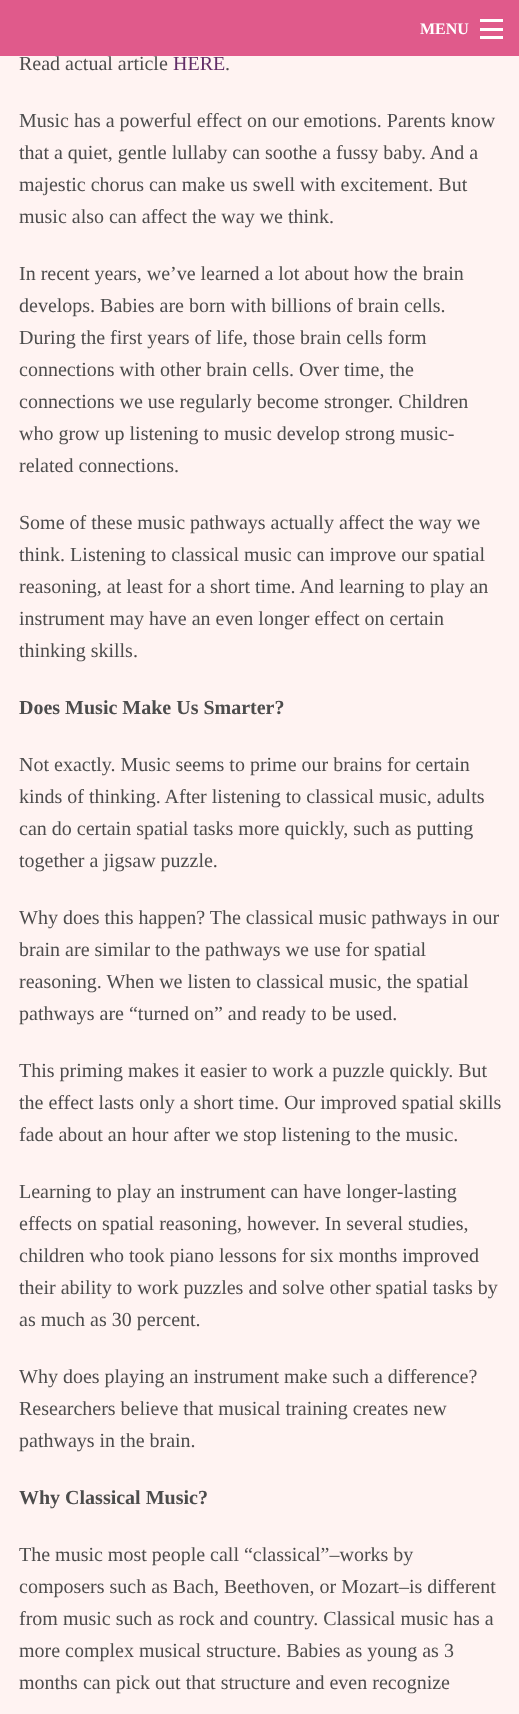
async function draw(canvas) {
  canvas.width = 519;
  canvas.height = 1714;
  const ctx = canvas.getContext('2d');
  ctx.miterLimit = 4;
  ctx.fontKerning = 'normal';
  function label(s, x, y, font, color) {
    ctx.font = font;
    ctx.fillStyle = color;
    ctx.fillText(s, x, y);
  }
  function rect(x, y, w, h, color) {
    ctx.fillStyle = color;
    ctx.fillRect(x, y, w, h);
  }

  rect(0, 0, 519, 1714, '#fff3f2');
  rect(0, 0, 519, 56, '#e05a8b');
  label('MENU', 420, 34, 'bold 16px Liberation Serif', '#fff');
  rect(480, 36, 23, 3, '#fff');
  rect(480, 28, 23, 3, '#fff');
  rect(480, 19, 23, 3, '#fff');
  label('Read actual article', 19, 70, '20px Liberation Serif', '#4d4d4d');
  label('HERE', 173, 70, '20px Liberation Serif', '#622d67');
  label('.', 225, 70, '20px Liberation Serif', '#4d4d4d');
  label('Music has a powerful effect on our emotions. Parents know', 19, 127, '20px Liberation Serif', '#4d4d4d');
  label('that a quiet, gentle lullaby can soothe a fussy baby. And a', 19, 159, '20px Liberation Serif', '#4d4d4d');
  label('majestic chorus can make us swell with excitement. But', 19, 191, '20px Liberation Serif', '#4d4d4d');
  label('music also can affect the way we think.', 19, 223, '20px Liberation Serif', '#4d4d4d');
  label('In recent years, we’ve learned a lot about how the brain', 19, 280, '20px Liberation Serif', '#4d4d4d');
  label('develops. Babies are born with billions of brain cells.', 19, 312, '20px Liberation Serif', '#4d4d4d');
  label('During the first years of life, those brain cells form', 19, 344, '20px Liberation Serif', '#4d4d4d');
  label('connections with other brain cells. Over time, the', 19, 376, '20px Liberation Serif', '#4d4d4d');
  label('connections we use regularly become stronger. Children', 19, 408, '20px Liberation Serif', '#4d4d4d');
  label('who grow up listening to music develop strong music-', 19, 440, '20px Liberation Serif', '#4d4d4d');
  label('related connections.', 19, 472, '20px Liberation Serif', '#4d4d4d');
  label('Some of these music pathways actually affect the way we', 19, 529, '20px Liberation Serif', '#4d4d4d');
  label('think. Listening to classical music can improve our spatial', 19, 561, '20px Liberation Serif', '#4d4d4d');
  label('reasoning, at least for a short time. And learning to play an', 19, 593, '20px Liberation Serif', '#4d4d4d');
  label('instrument may have an even longer effect on certain', 19, 625, '20px Liberation Serif', '#4d4d4d');
  label('thinking skills.', 19, 657, '20px Liberation Serif', '#4d4d4d');
  label('Does Music Make Us Smarter?', 19, 714, 'bold 20px Liberation Serif', '#4d4d4d');
  label('Not exactly. Music seems to prime our brains for certain', 19, 771, '20px Liberation Serif', '#4d4d4d');
  label('kinds of thinking. After listening to classical music, adults', 19, 803, '20px Liberation Serif', '#4d4d4d');
  label('can do certain spatial tasks more quickly, such as putting', 19, 835, '20px Liberation Serif', '#4d4d4d');
  label('together a jigsaw puzzle.', 19, 867, '20px Liberation Serif', '#4d4d4d');
  label('Why does this happen? The classical music pathways in our', 19, 924, '20px Liberation Serif', '#4d4d4d');
  label('brain are similar to the pathways we use for spatial', 19, 956, '20px Liberation Serif', '#4d4d4d');
  label('reasoning. When we listen to classical music, the spatial', 19, 988, '20px Liberation Serif', '#4d4d4d');
  label('pathways are “turned on” and ready to be used.', 19, 1020, '20px Liberation Serif', '#4d4d4d');
  label('This priming makes it easier to work a puzzle quickly. But', 19, 1077, '20px Liberation Serif', '#4d4d4d');
  label('the effect lasts only a short time. Our improved spatial skills', 19, 1109, '20px Liberation Serif', '#4d4d4d');
  label('fade about an hour after we stop listening to the music.', 19, 1141, '20px Liberation Serif', '#4d4d4d');
  label('Learning to play an instrument can have longer-lasting', 19, 1198, '20px Liberation Serif', '#4d4d4d');
  label('effects on spatial reasoning, however. In several studies,', 19, 1230, '20px Liberation Serif', '#4d4d4d');
  label('children who took piano lessons for six months improved', 19, 1262, '20px Liberation Serif', '#4d4d4d');
  label('their ability to work puzzles and solve other spatial tasks by', 19, 1294, '20px Liberation Serif', '#4d4d4d');
  label('as much as 30 percent.', 19, 1326, '20px Liberation Serif', '#4d4d4d');
  label('Why does playing an instrument make such a difference?', 19, 1383, '20px Liberation Serif', '#4d4d4d');
  label('Researchers believe that musical training creates new', 19, 1415, '20px Liberation Serif', '#4d4d4d');
  label('pathways in the brain.', 19, 1447, '20px Liberation Serif', '#4d4d4d');
  label('Why Classical Music?', 19, 1504, 'bold 20px Liberation Serif', '#4d4d4d');
  label('The music most people call “classical”–works by', 19, 1561, '20px Liberation Serif', '#4d4d4d');
  label('composers such as Bach, Beethoven, or Mozart–is different', 19, 1593, '20px Liberation Serif', '#4d4d4d');
  label('from music such as rock and country. Classical music has a', 19, 1625, '20px Liberation Serif', '#4d4d4d');
  label('more complex musical structure. Babies as young as 3', 19, 1657, '20px Liberation Serif', '#4d4d4d');
  label('months can pick out that structure and even recognize', 19, 1689, '20px Liberation Serif', '#4d4d4d');
}

draw(document.querySelector('canvas'));
